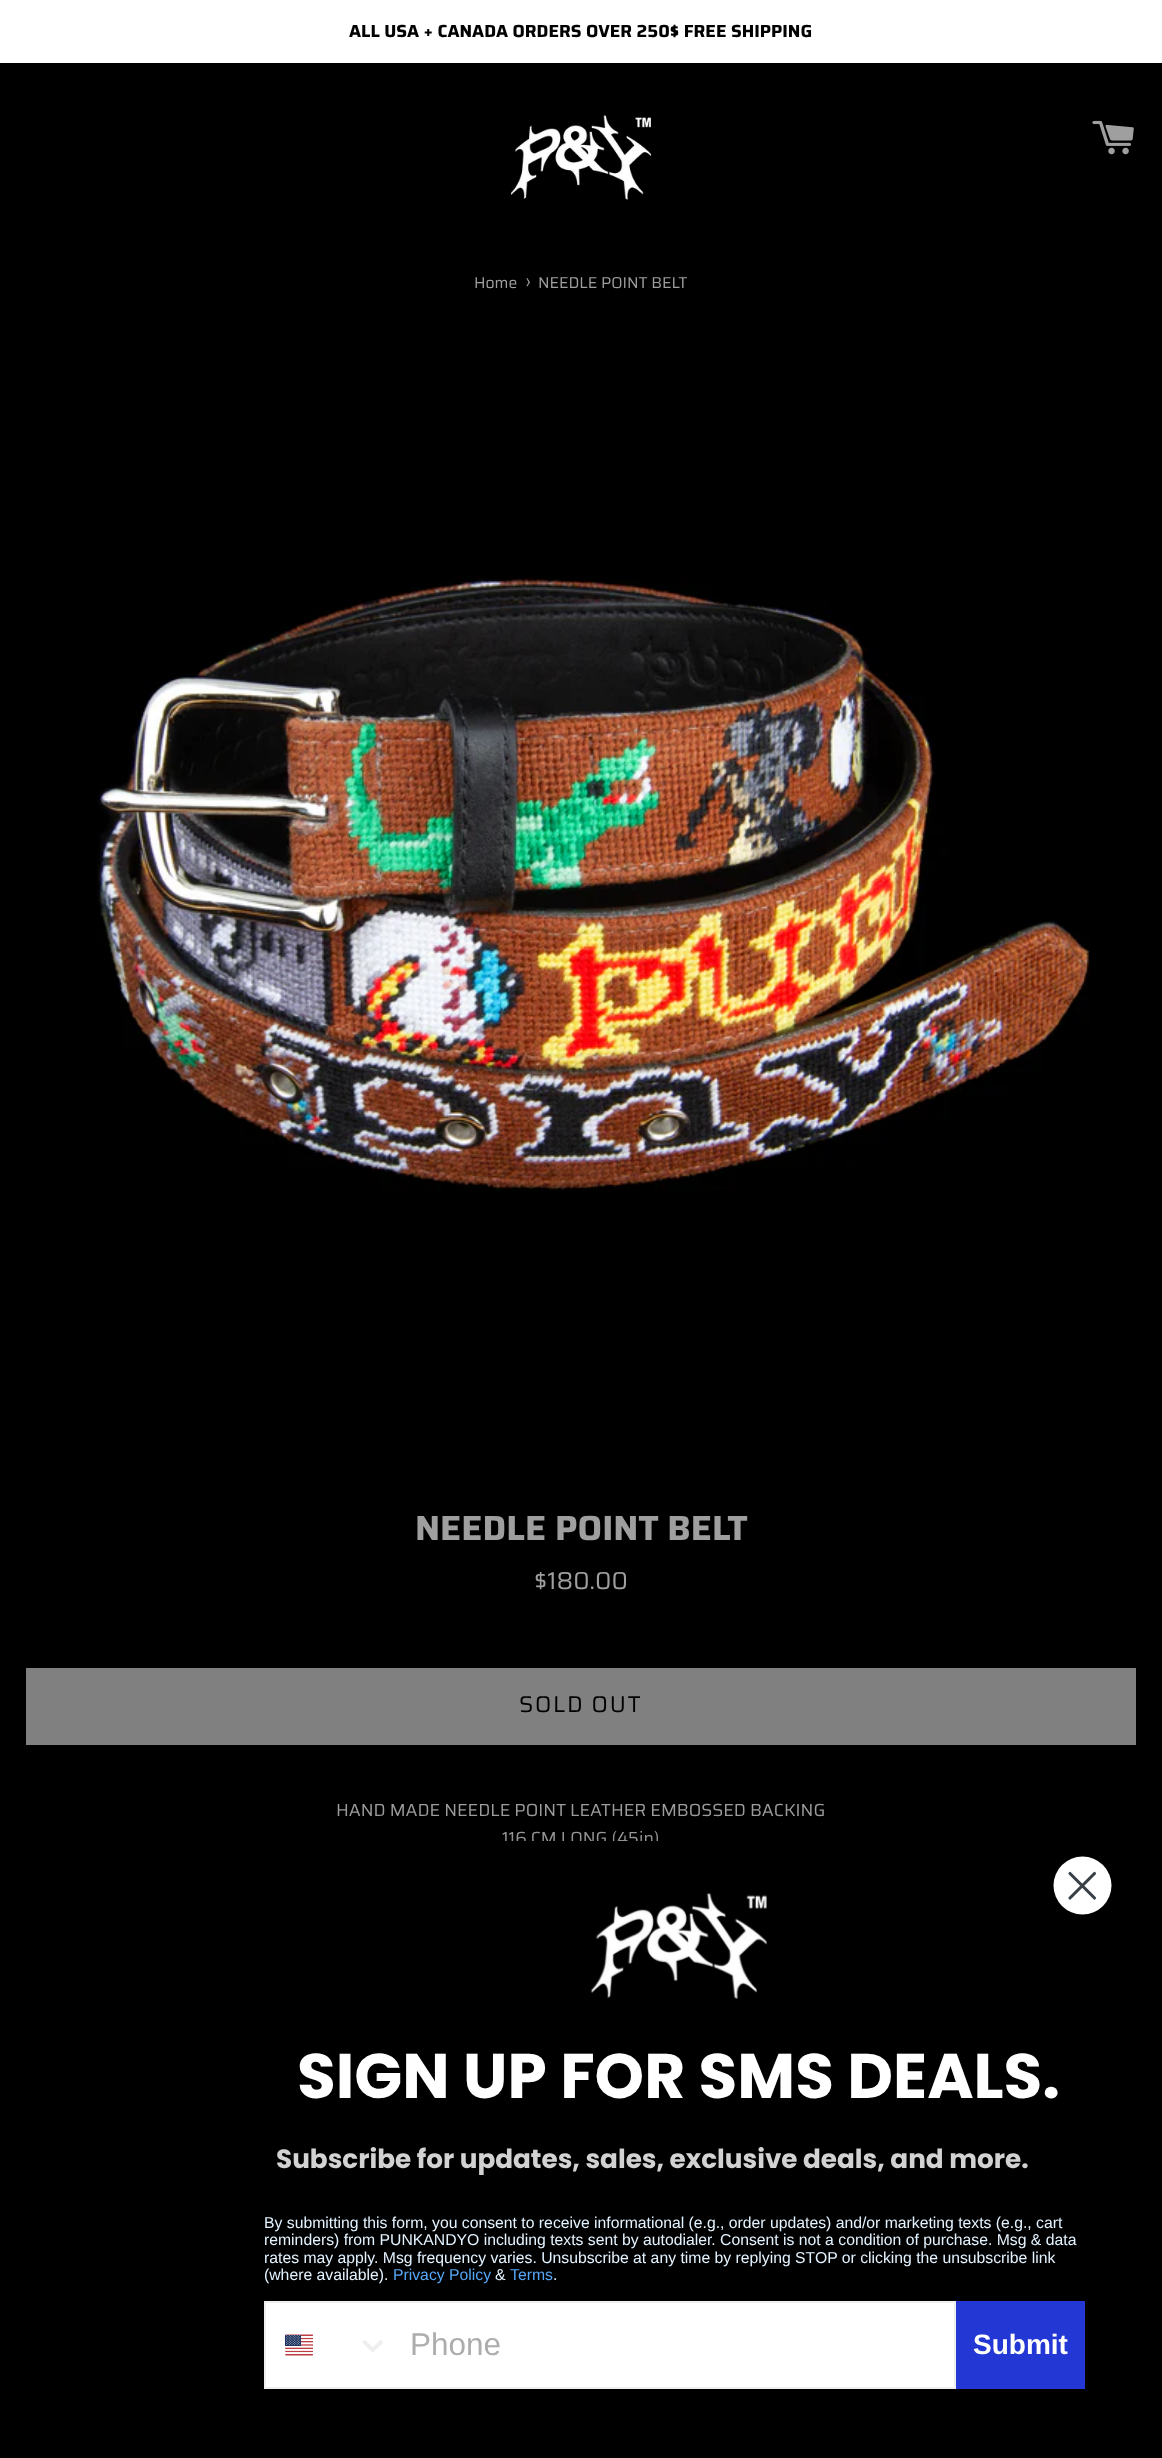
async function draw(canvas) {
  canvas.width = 1162;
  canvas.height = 2458;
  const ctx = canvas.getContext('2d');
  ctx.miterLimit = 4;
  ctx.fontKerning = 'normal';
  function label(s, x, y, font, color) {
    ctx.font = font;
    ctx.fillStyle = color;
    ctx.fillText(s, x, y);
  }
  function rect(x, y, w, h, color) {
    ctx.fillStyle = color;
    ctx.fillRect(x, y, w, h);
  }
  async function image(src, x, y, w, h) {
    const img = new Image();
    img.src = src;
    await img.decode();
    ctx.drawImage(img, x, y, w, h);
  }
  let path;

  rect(0, 0, 1162, 2458, '#000');
  rect(0, 0, 1162, 63, '#fff');
  label('ALL USA + CANADA ORDERS OVER 250$ FREE SHIPPING', 349, 37, 'bold 17.5px Saira', '#000');
  await image('assets/img1.png', 511, 115, 140, 85);
  await image('assets/img2.png', 1092, 120, 42, 35);
  label('Home', 474, 288, '15.75px Saira', '#9f9f9f');
  label('›', 525, 288, '19px Saira', '#9f9f9f');
  label('NEEDLE POINT BELT', 538, 288, '15.75px Saira', '#9f9f9f');
  await image('assets/img3.png', 97, 575, 994, 616);
  label('NEEDLE POINT BELT', 415, 1540, 'bold 35px Saira', '#9f9f9f');
  label('$180.00', 534, 1589, '24.5px Saira', '#9f9f9f');
  rect(26, 1668, 1110, 77, '#808080');
  ctx.letterSpacing = '1.75px';
  label('SOLD OUT', 519, 1712, '22.75px Saira', '#000');
  ctx.letterSpacing = '0px';
  label('HAND MADE NEEDLE POINT LEATHER EMBOSSED BACKING', 336, 1816, '17.5px Saira', '#9f9f9f');
  label('116 CM LONG (45in)', 502, 1844, '17.5px Saira', '#9f9f9f');
  ctx.fillStyle = '#00000026';
  ctx.filter = 'blur(26px)';
  ctx.beginPath();
  ctx.rect(229, 1841, 898, 583);
  ctx.fill();
  ctx.filter = 'none';
  ctx.fillStyle = '#fff';
  ctx.beginPath();
  ctx.arc(1082.5, 1885.5, 29, 0, 2 * Math.PI);
  ctx.fill();
  path = new Path2D('M1070 1873.5L1094.5 1898M1070 1898L1094.5 1873.5Z');
  ctx.strokeStyle = '#373f47';
  ctx.lineWidth = 3.1;
  ctx.lineCap = 'round';
  ctx.lineJoin = 'round';
  ctx.stroke(path);
  rect(505, 1841, 154, 6, '#000');
  await image('assets/img4.png', 590, 1892, 177, 107);
  label('SIGN UP FOR SMS DEALS.', 297, 2098, 'bold 63px Poppins', '#fff');
  label('Subscribe for updates, sales, exclusive deals, and more.', 276, 2168, 'bold 26.25px Poppins', '#d2d2d2');
  label('By submitting this form, you consent to receive informational (e.g., order updates) and/or marketing texts (e.g., cart', 264, 2228, '15.75px Liberation Sans', '#e3f3ff');
  label('reminders) from PUNKANDYO including texts sent by autodialer. Consent is not a condition of purchase. Msg & data', 264, 2245, '15.75px Liberation Sans', '#e3f3ff');
  label('rates may apply. Msg frequency varies. Unsubscribe at any time by replying STOP or clicking the unsubscribe link', 264, 2263, '15.75px Liberation Sans', '#e3f3ff');
  label('(where available).', 264, 2280, '15.75px Liberation Sans', '#e3f3ff');
  label('Privacy Policy', 393, 2280, '15.75px Liberation Sans', '#56a7f6');
  label('&', 495, 2280, '15.75px Liberation Sans', '#e3f3ff');
  label('Terms', 510, 2280, '15.75px Liberation Sans', '#56a7f6');
  label('.', 553, 2280, '15.75px Liberation Sans', '#e3f3ff');
  ctx.fillStyle = '#fff';
  ctx.beginPath();
  ctx.rect(265, 2302, 690, 86);
  ctx.fill();
  ctx.strokeStyle = '#eee';
  ctx.lineWidth = 2;
  ctx.lineJoin = 'miter';
  ctx.stroke();
  await image('assets/img5.png', 285, 2334, 28, 22);
  await image('assets/img6.png', 362, 2340, 21, 12);
  label('Phone', 410, 2355, '31.5px Liberation Sans', '#adadad');
  rect(956, 2301, 129, 88, '#2237d4');
  label('Submit', 973, 2354, 'bold 28px Liberation Sans', '#fff');
}

draw(document.querySelector('canvas'));
